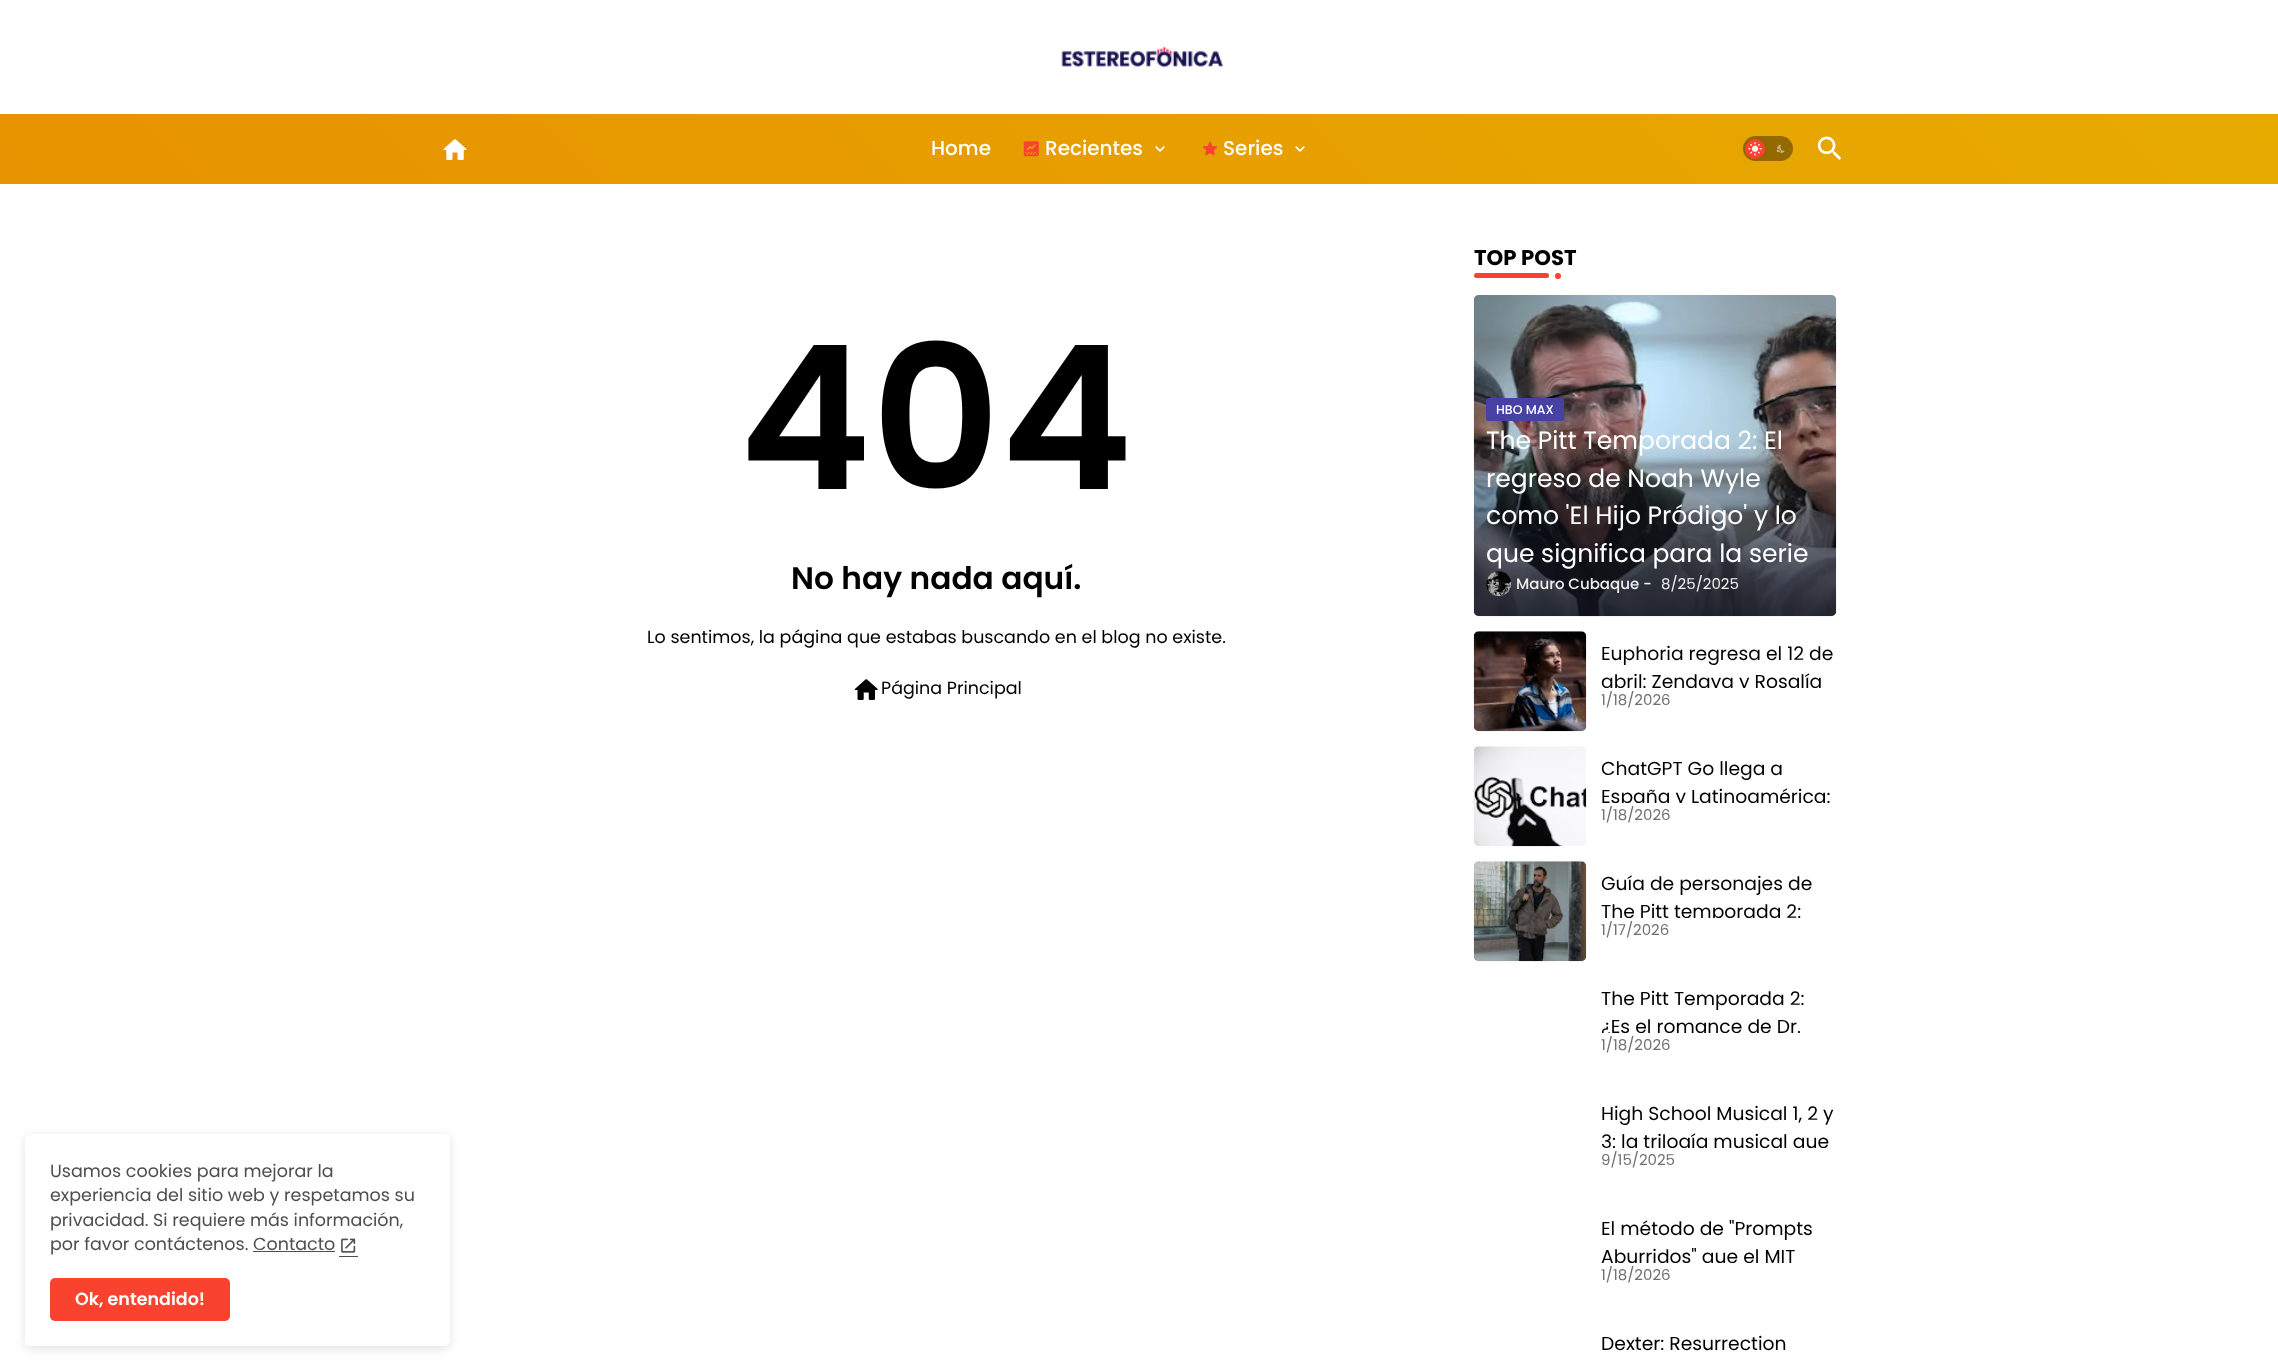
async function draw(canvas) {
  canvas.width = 2278;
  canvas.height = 1371;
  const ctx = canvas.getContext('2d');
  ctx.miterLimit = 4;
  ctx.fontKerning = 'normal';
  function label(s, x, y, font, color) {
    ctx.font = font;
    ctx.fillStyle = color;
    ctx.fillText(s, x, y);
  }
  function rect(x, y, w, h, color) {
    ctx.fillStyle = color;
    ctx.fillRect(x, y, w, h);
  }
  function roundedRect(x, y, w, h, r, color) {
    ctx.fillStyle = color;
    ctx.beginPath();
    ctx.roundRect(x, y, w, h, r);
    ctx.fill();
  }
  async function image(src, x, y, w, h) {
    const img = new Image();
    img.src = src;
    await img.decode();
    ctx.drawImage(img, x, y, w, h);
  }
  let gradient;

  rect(0, 0, 2278, 1371, '#fff');
  await image('assets/img1.png', 1061, 46, 163, 22);
  gradient = ctx.createLinearGradient(552, 736, 1727, -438);
  gradient.addColorStop(0, '#e79200');
  gradient.addColorStop(1, '#e7ab00');
  ctx.fillStyle = gradient;
  ctx.fillRect(0, 114, 2278, 70);
  await image('assets/img2.png', 443, 139, 24, 21);
  label('Home', 931, 155, '500 20px Poppins', '#fff');
  await image('assets/img3.png', 1023, 141, 16, 16);
  label('Recientes', 1045, 155, '500 20px Poppins', '#fff');
  await image('assets/img4.png', 1155, 146, 10, 6);
  await image('assets/img5.png', 1203, 141, 14, 15);
  label('Series', 1223, 155, '500 20px Poppins', '#fff');
  await image('assets/img6.png', 1295, 146, 10, 6);
  roundedRect(1743, 136, 50, 25, 12.5, '#946a00');
  ctx.fillStyle = '#0000001a';
  ctx.filter = 'blur(2.5px)';
  ctx.beginPath();
  ctx.roundRect(1745, 139, 20, 20, 10);
  ctx.fill();
  ctx.filter = 'none';
  ctx.fillStyle = '#fa432f';
  ctx.beginPath();
  ctx.arc(1755, 149, 10, 0, 2 * Math.PI);
  ctx.fill();
  await image('assets/img7.png', 1748, 142, 14, 14);
  await image('assets/img8.png', 1776, 144, 9, 9);
  await image('assets/img9.png', 1817, 136, 24, 24);
  ctx.fillStyle = '#0000001c';
  ctx.filter = 'blur(5px)';
  ctx.beginPath();
  ctx.roundRect(25, 1136, 425, 213, 5);
  ctx.fill();
  ctx.filter = 'none';
  roundedRect(25, 1134, 425, 212, 5, '#fff');
  label('Usamos cookies para mejorar la', 50, 1177, '17.5px Poppins', '#4e4e4e');
  label('experiencia del sitio web y respetamos su', 50, 1201, '17.5px Poppins', '#4e4e4e');
  label('privacidad. Si requiere más información,', 50, 1226, '17.5px Poppins', '#4e4e4e');
  label('por favor contáctenos. Contacto', 50, 1250, '17.5px Poppins', '#4e4e4e');
  await image('assets/img10.png', 341, 1238, 15, 15);
  rect(253, 1251, 82, 1, '#4e4e4e');
  rect(339, 1256, 19, 1, '#4e4e4e');
  roundedRect(50, 1278, 180, 43, 5, '#fa432f');
  label('Ok, entendido!', 75, 1305, '600 17.5px Poppins', '#fff');
  label('404', 739, 489, '600 200px Poppins', '#000');
  label('No hay nada aquí.', 791, 589, '600 31.25px Poppins', '#000');
  label('Lo sentimos, la página que estabas buscando en el blog no existe.', 647, 643, '17.5px Poppins', '#000');
  await image('assets/img11.png', 854, 679, 24, 21);
  label('Página Principal', 881, 694, '17.5px Poppins', '#000');
  label('TOP POST', 1474, 265, 'bold 21.25px Poppins', '#000');
  roundedRect(1474, 273, 75, 5, 2.5, '#fa432f');
  ctx.beginPath();
  ctx.arc(1558, 276, 3, 0, 2 * Math.PI);
  ctx.fill();
  await image('assets/img12.png', 1473, 295, 364, 322);
  gradient = ctx.createLinearGradient(1655, 440, 1655, 616);
  gradient.addColorStop(0, '#14152000');
  gradient.addColorStop(1, '#141520c2');
  ctx.fillStyle = gradient;
  ctx.beginPath();
  ctx.roundRect(1474, 440, 362, 176, [0, 0, 5, 5]);
  ctx.fill();
  roundedRect(1486, 398, 78, 23, 2.5, '#4641a3');
  label('HBO MAX', 1496, 414, '500 12.5px Poppins', '#fff');
  label('The Pitt Temporada 2: El', 1486, 449, '25px Poppins', '#fff');
  label('regreso de Noah Wyle', 1486, 487, '25px Poppins', '#fff');
  label('como \'El Hijo Pródigo\' y lo', 1486, 524, '25px Poppins', '#fff');
  label('que significa para la serie', 1486, 562, '25px Poppins', '#fff');
  await image('assets/img13.png', 1486, 571, 26, 26);
  label('Mauro Cubaque -', 1516, 589, '500 15px Poppins', '#eee');
  label('8/25/2025', 1661, 589, '15px Poppins', '#eee');
  await image('assets/img14.png', 1473, 631, 114, 101);
  label('Euphoria regresa el 12 de', 1601, 660, '18.75px Poppins', '#000');
  ctx.save();
  ctx.beginPath();
  ctx.rect(1601, 640, 235, 48);
  ctx.clip();
  label('abril: Zendaya y Rosalía', 1601, 688, '18.75px Poppins', '#000');
  ctx.restore();
  label('1/18/2026', 1601, 705, '15px Poppins', '#707070');
  await image('assets/img15.png', 1474, 746, 113, 101);
  label('ChatGPT Go llega a', 1601, 775, '18.75px Poppins', '#000');
  ctx.save();
  ctx.beginPath();
  ctx.rect(1601, 755, 235, 48);
  ctx.clip();
  label('España y Latinoamérica:', 1601, 803, '18.75px Poppins', '#000');
  ctx.restore();
  label('1/18/2026', 1601, 820, '15px Poppins', '#707070');
  await image('assets/img16.png', 1473, 861, 114, 101);
  label('Guía de personajes de', 1601, 890, '18.75px Poppins', '#000');
  ctx.save();
  ctx.beginPath();
  ctx.rect(1601, 870, 235, 48);
  ctx.clip();
  label('The Pitt temporada 2:', 1601, 918, '18.75px Poppins', '#000');
  ctx.restore();
  label('1/17/2026', 1601, 935, '15px Poppins', '#707070');
  label('The Pitt Temporada 2:', 1601, 1005, '18.75px Poppins', '#000');
  ctx.save();
  ctx.beginPath();
  ctx.rect(1601, 985, 235, 48);
  ctx.clip();
  label('¿Es el romance de Dr.', 1601, 1033, '18.75px Poppins', '#000');
  ctx.restore();
  label('1/18/2026', 1601, 1050, '15px Poppins', '#707070');
  label('High School Musical 1, 2 y', 1601, 1120, '18.75px Poppins', '#000');
  ctx.save();
  ctx.beginPath();
  ctx.rect(1601, 1100, 235, 48);
  ctx.clip();
  label('3: la trilogía musical que', 1601, 1148, '18.75px Poppins', '#000');
  ctx.restore();
  label('9/15/2025', 1601, 1165, '15px Poppins', '#707070');
  label('El método de "Prompts', 1601, 1235, '18.75px Poppins', '#000');
  ctx.save();
  ctx.beginPath();
  ctx.rect(1601, 1215, 235, 48);
  ctx.clip();
  label('Aburridos" que el MIT', 1601, 1263, '18.75px Poppins', '#000');
  ctx.restore();
  label('1/18/2026', 1601, 1280, '15px Poppins', '#707070');
  label('Dexter: Resurrection', 1601, 1350, '18.75px Poppins', '#000');
}

draw(document.querySelector('canvas'));
